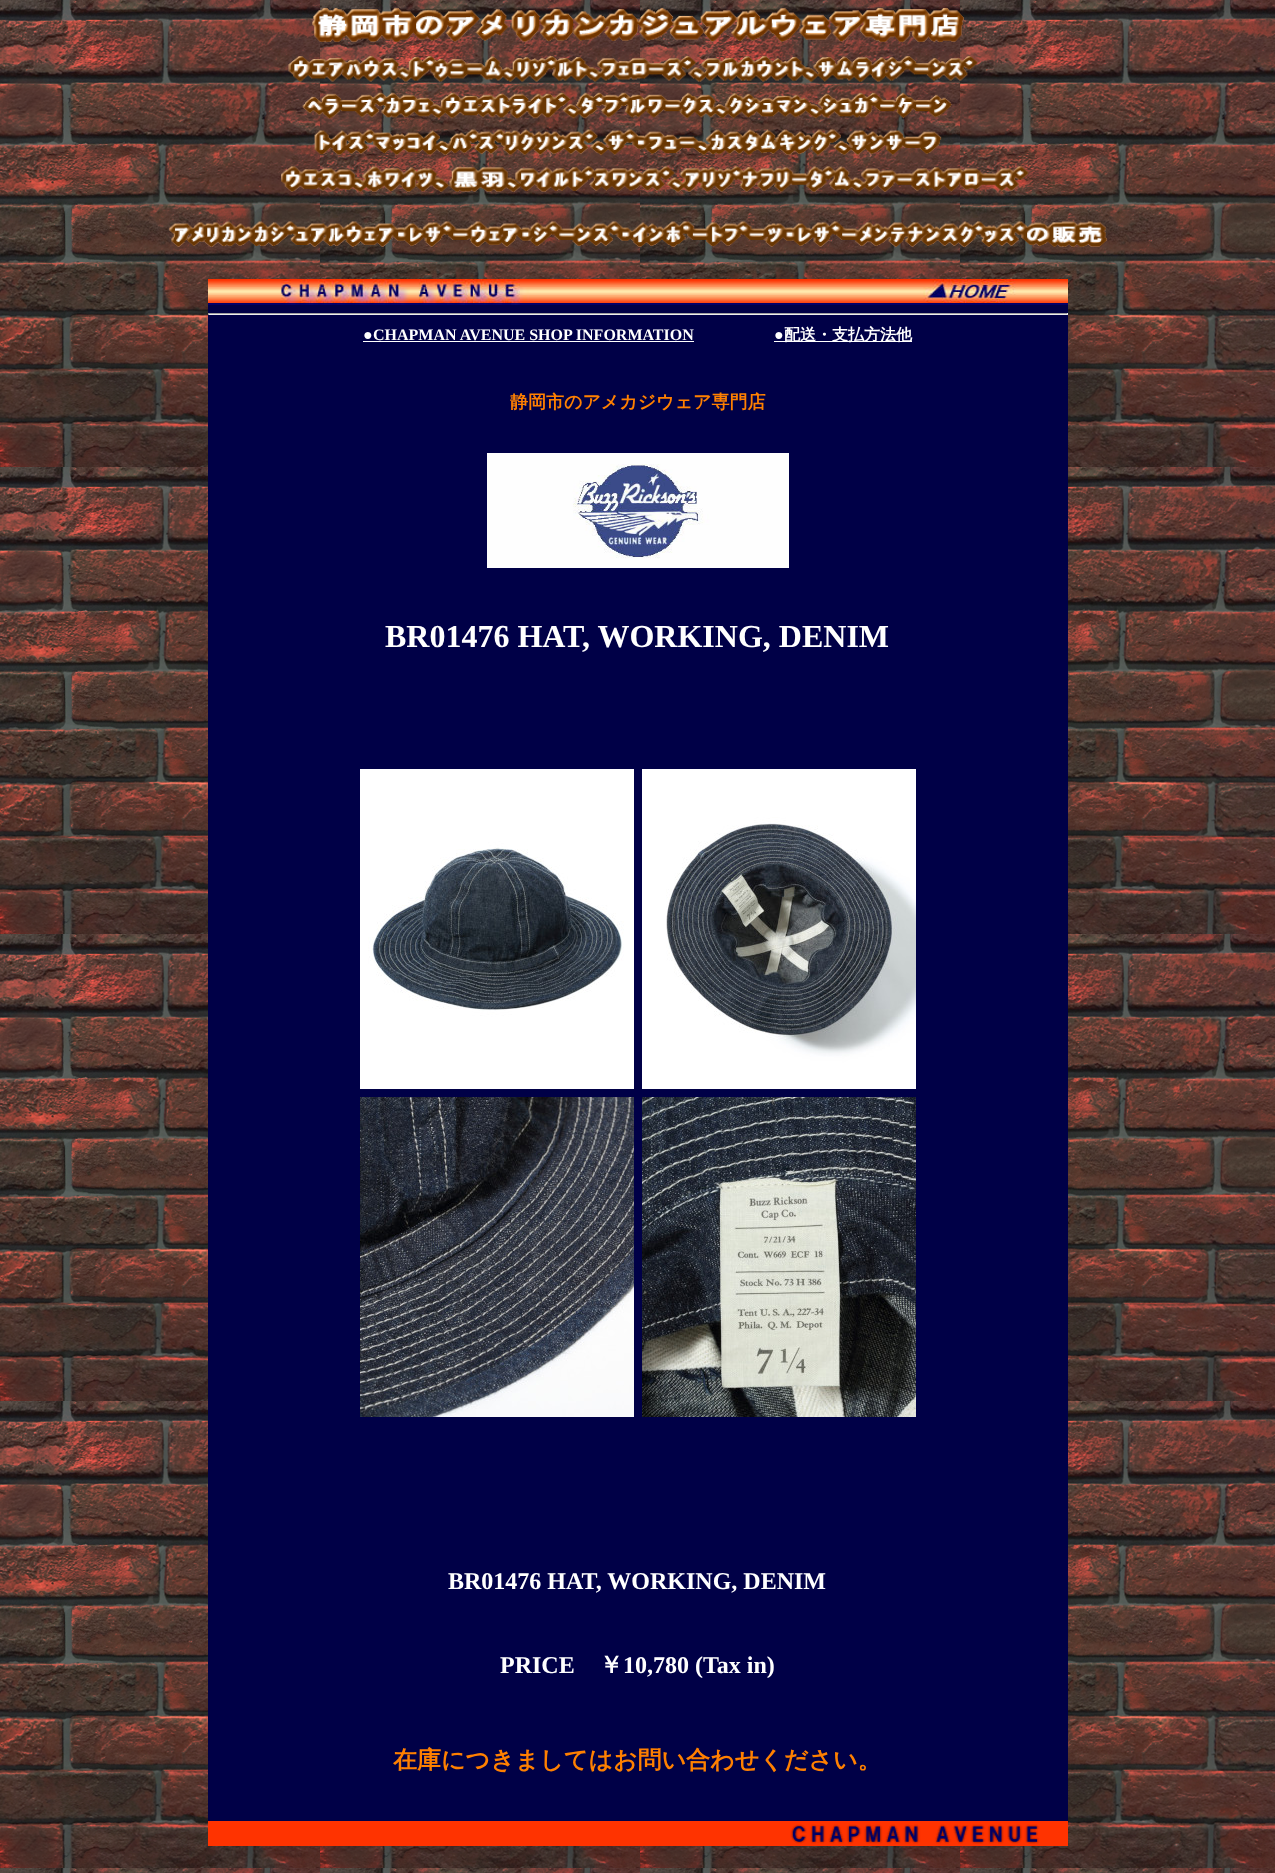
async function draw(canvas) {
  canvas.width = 1275;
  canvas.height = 1873;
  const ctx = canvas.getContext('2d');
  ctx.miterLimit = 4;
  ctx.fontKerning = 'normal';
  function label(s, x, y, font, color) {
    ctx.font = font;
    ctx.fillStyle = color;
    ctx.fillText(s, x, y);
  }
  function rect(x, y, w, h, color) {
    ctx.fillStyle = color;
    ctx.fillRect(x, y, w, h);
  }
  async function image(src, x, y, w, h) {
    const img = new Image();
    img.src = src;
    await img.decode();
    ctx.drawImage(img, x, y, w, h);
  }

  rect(0, 0, 1275, 1873, '#fff');
  await image('assets/img1.png', 0, 0, 1275, 1873);
  await image('assets/img2.png', 312, 8, 652, 34);
  await image('assets/img3.png', 169, 56, 938, 191);
  rect(208, 305, 860, 1516, '#000047');
  await image('assets/img4.png', 208, 279, 860, 26);
  rect(208, 313, 860, 1, '#9f9f9f');
  rect(1067, 313, 1, 2, '#eee');
  rect(208, 314, 860, 1, '#eee');
  rect(208, 313, 1, 2, '#9f9f9f');
  label('●', 363, 340, '16px Liberation Serif', '#fff');
  rect(363, 341, 331, 1, '#fff');
  label('CHAPMAN AVENUE SHOP INFORMATION', 373, 340, 'bold 16px Liberation Serif', '#fff');
  label('●', 774, 340, 'bold 16px Liberation Serif', '#fff');
  rect(774, 341, 138, 1, '#fff');
  label('配送・支払方法他', 784, 340, 'bold 16px WenQuanYi Zen Hei', '#fff');
  label('静岡市のアメカジウェア専門店', 510, 408, 'bold 18px WenQuanYi Zen Hei', '#ff8000');
  await image('assets/img5.png', 487, 453, 302, 115);
  label('BR01476 HAT, WORKING, DENIM', 385, 647, 'bold 32px Liberation Serif', '#fff');
  await image('assets/img6.png', 360, 769, 274, 320);
  await image('assets/img7.png', 642, 769, 274, 320);
  await image('assets/img8.png', 360, 1097, 274, 320);
  await image('assets/img9.png', 642, 1097, 274, 320);
  label('BR01476 HAT, WORKING, DENIM', 448, 1589, 'bold 24px Liberation Serif', '#fff');
  label('PRICE', 500, 1673, 'bold 24px Liberation Serif', '#fff');
  label('￥', 599, 1673, 'bold 24px WenQuanYi Zen Hei', '#fff');
  label('10,780 (Tax in)', 623, 1673, 'bold 24px Liberation Serif', '#fff');
  label('在庫につきましてはお問い合わせください。', 393, 1768, 'bold 24px WenQuanYi Zen Hei', '#ff8000');
  await image('assets/img10.png', 208, 1821, 860, 25);
}

draw(document.querySelector('canvas'));
